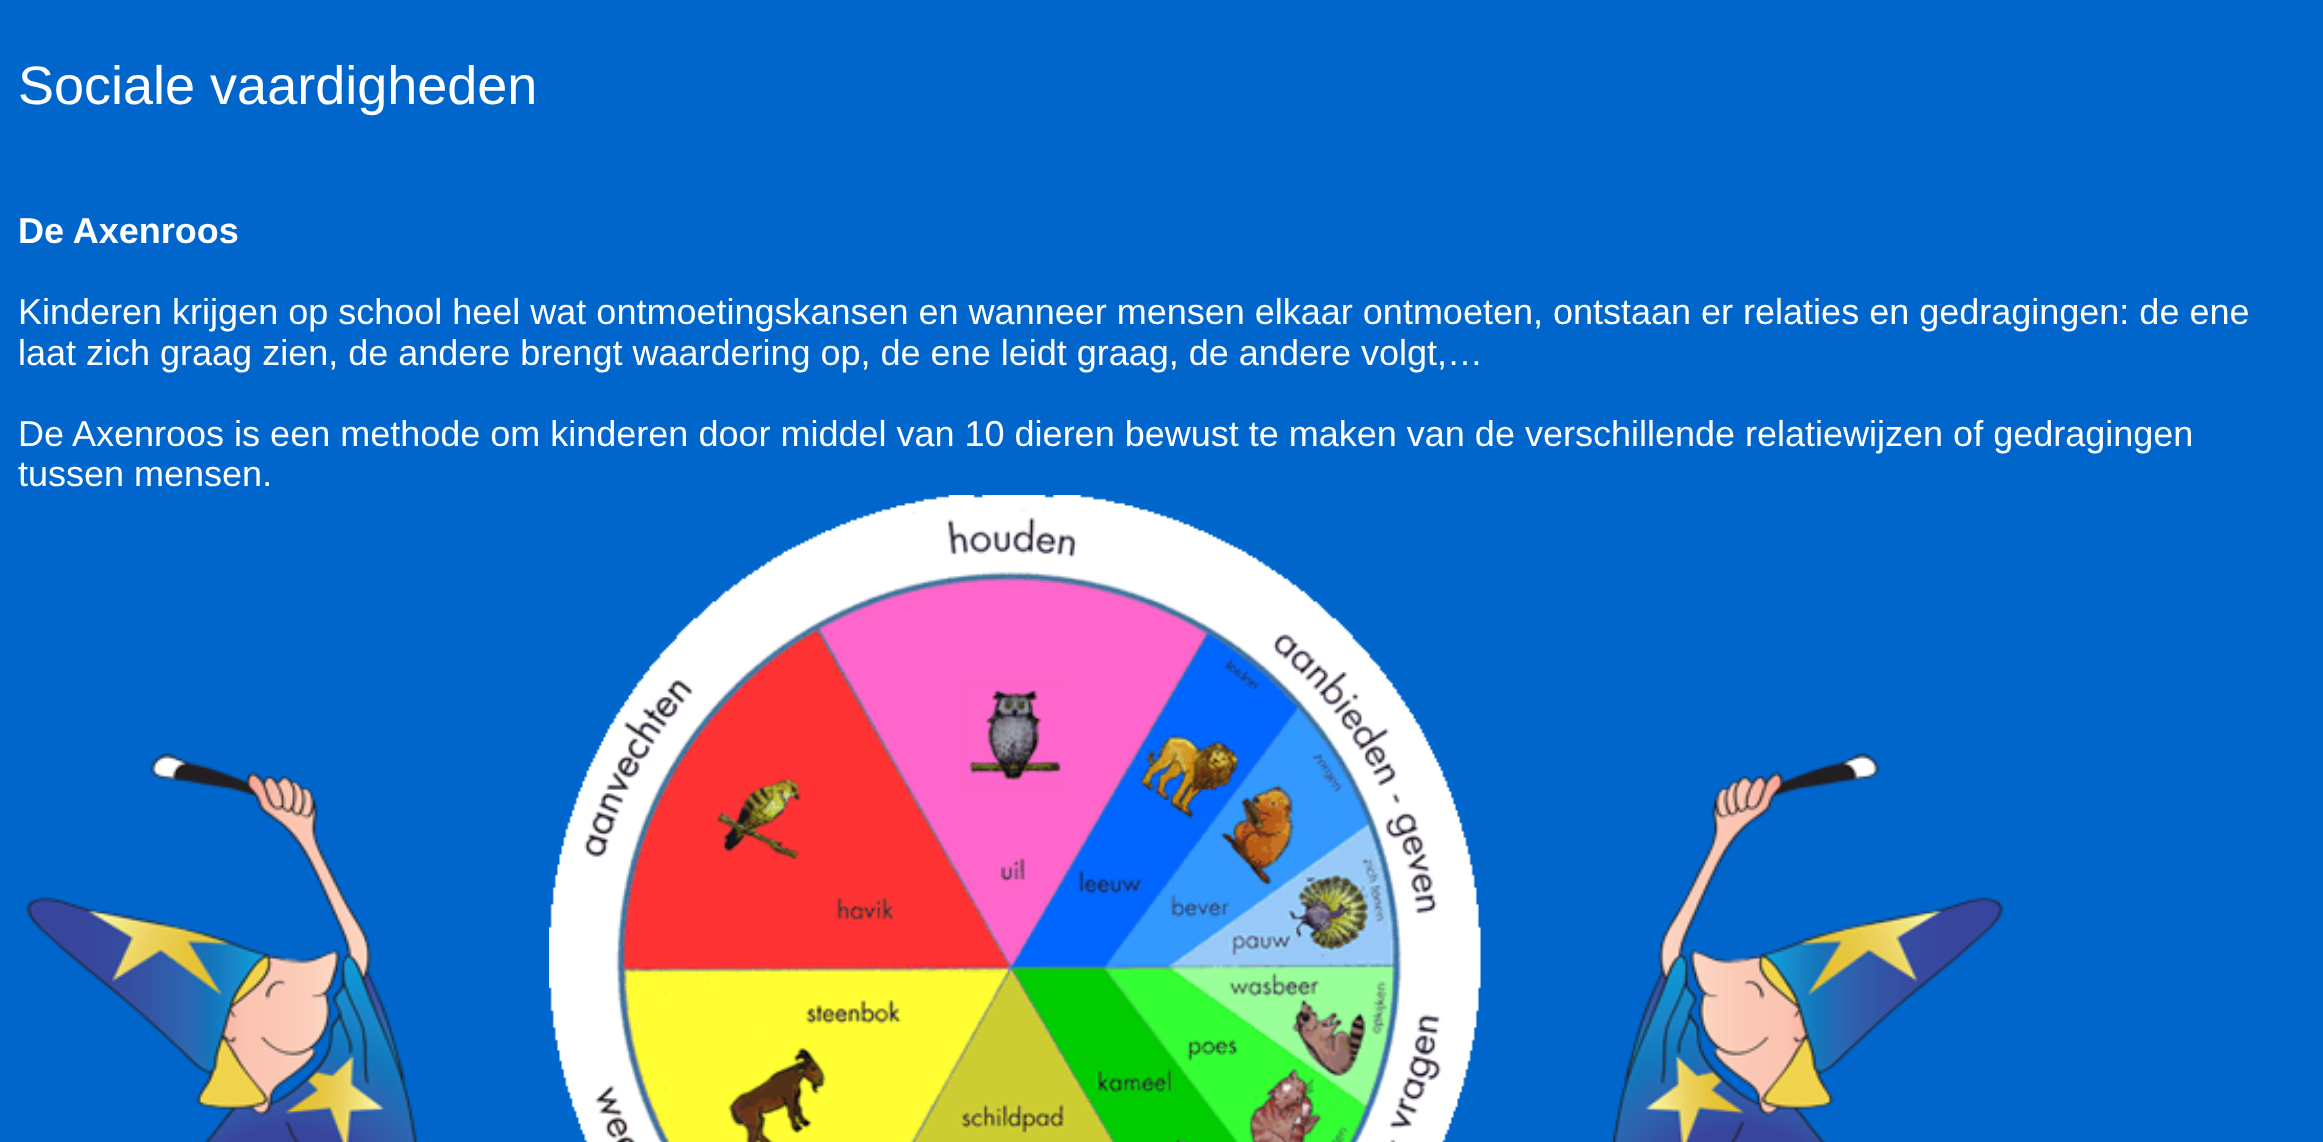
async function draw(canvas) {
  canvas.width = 2323;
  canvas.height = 1142;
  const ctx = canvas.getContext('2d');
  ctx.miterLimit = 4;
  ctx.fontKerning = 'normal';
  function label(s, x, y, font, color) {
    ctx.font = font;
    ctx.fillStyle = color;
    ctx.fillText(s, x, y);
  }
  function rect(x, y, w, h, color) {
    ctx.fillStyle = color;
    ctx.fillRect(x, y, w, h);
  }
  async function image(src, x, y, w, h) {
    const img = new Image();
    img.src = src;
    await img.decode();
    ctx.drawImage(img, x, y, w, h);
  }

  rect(0, 0, 2323, 1142, '#06c');
  label('Sociale vaardigheden', 18, 104, '54px Liberation Sans', '#fff');
  label('De Axenroos', 18, 243, 'bold 36px Liberation Sans', '#fff');
  label('Kinderen krijgen op school heel wat ontmoetingskansen en wanneer mensen elkaar ontmoeten, ontstaan er relaties en gedragingen: de ene', 18, 324, '36px Liberation Sans', '#fff');
  label('laat zich graag zien, de andere brengt waardering op, de ene leidt graag, de andere volgt,…', 18, 365, '36px Liberation Sans', '#fff');
  label('De Axenroos is een methode om kinderen door middel van 10 dieren bewust te maken van de verschillende relatiewijzen of gedragingen', 18, 446, '36px Liberation Sans', '#fff');
  label('tussen mensen.', 18, 486, '36px Liberation Sans', '#fff');
  await image('assets/img1.png', 26, 753, 393, 389);
  await image('assets/img2.png', 549, 495, 932, 647);
  await image('assets/img3.png', 1611, 753, 393, 389);
}

draw(document.querySelector('canvas'));
